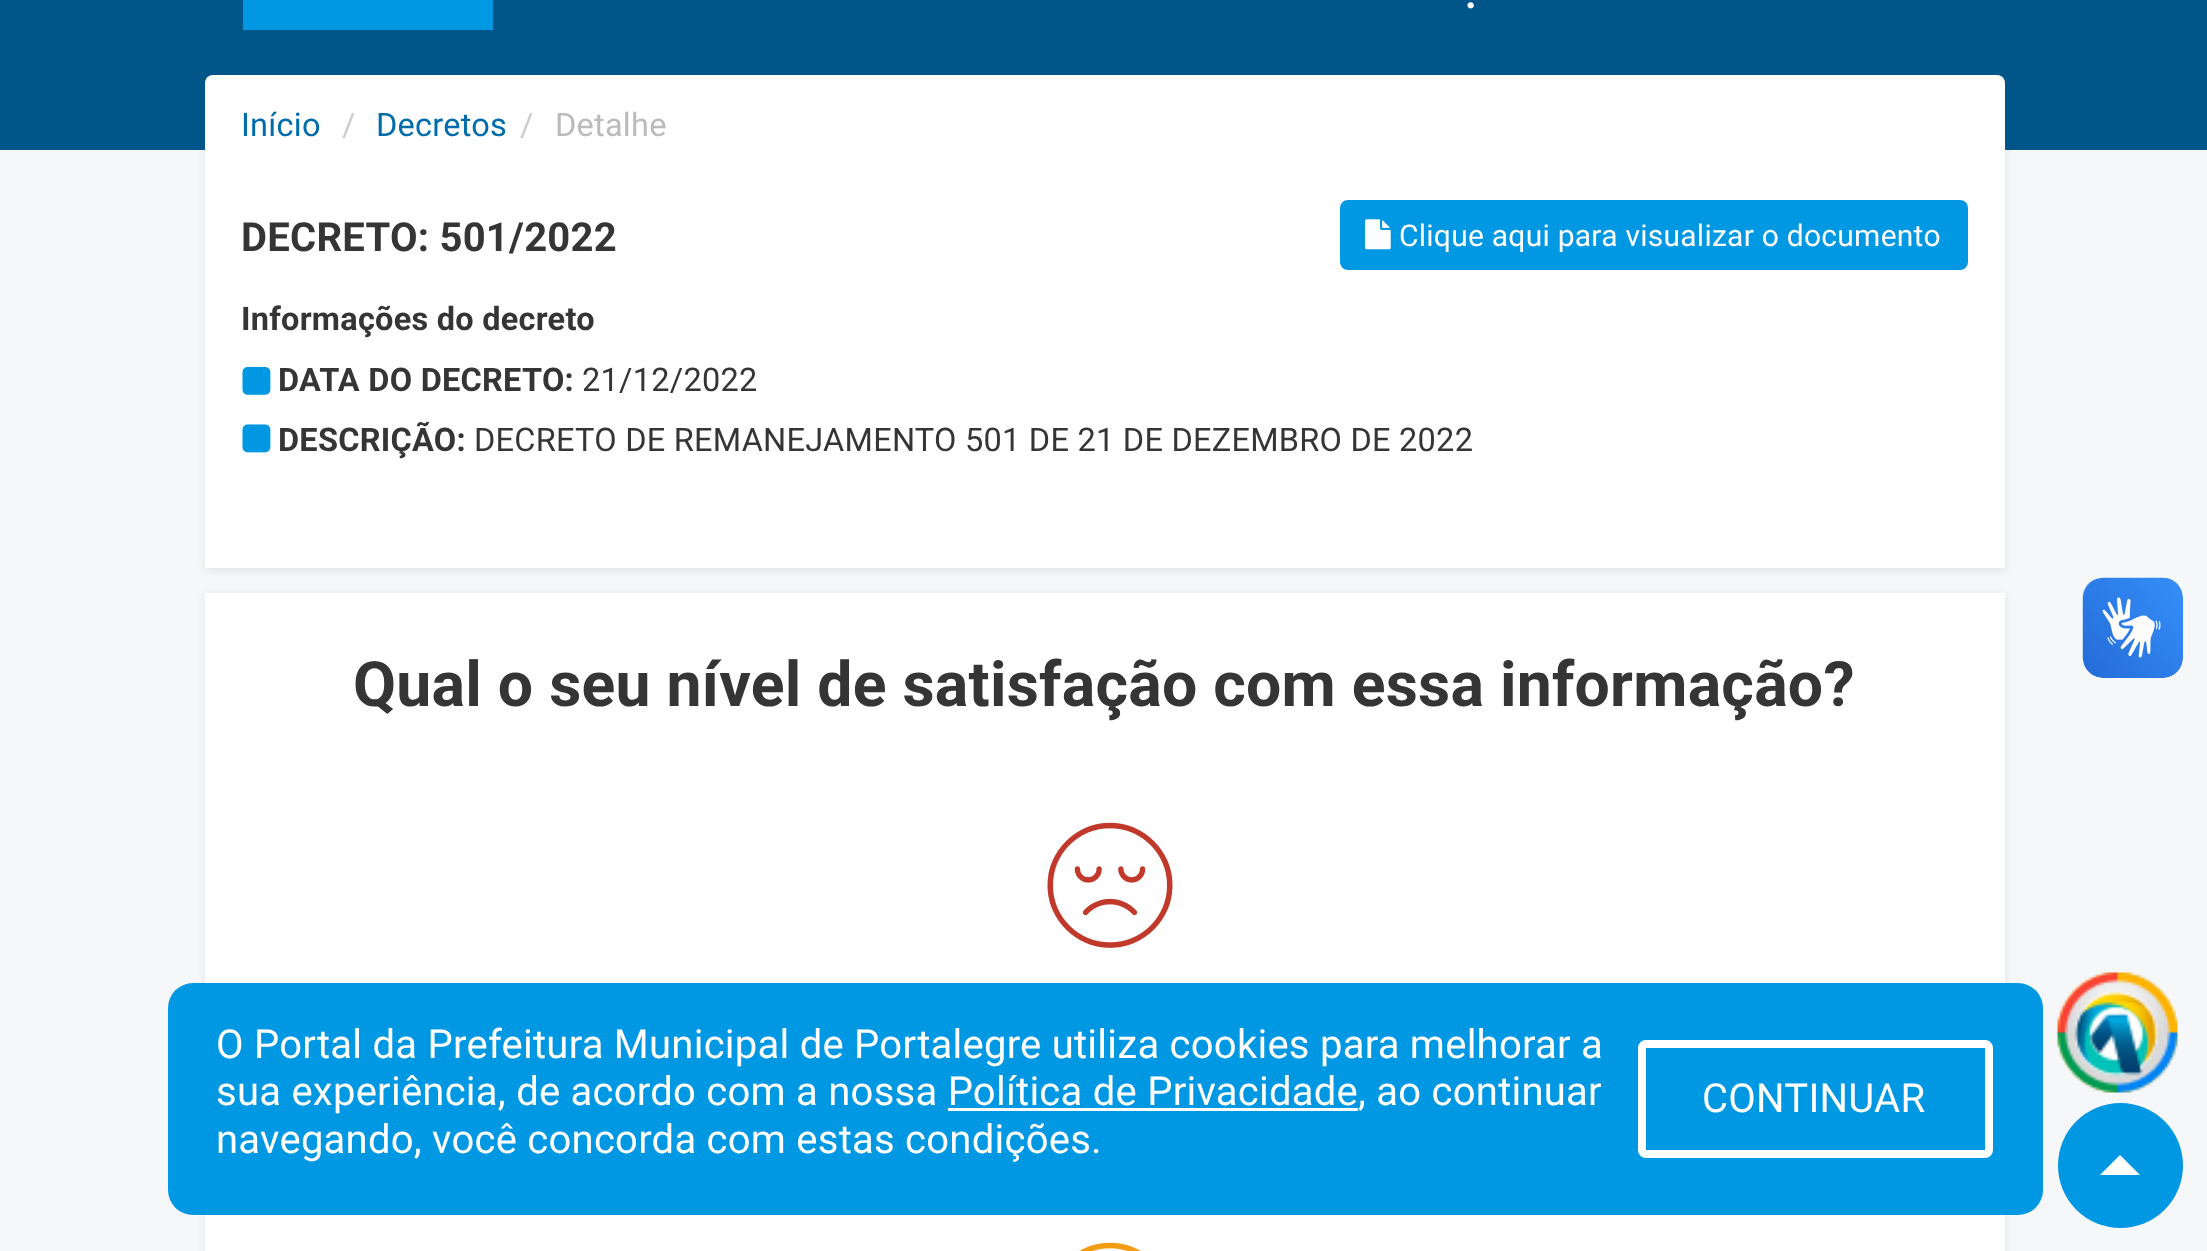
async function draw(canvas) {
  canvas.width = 2207;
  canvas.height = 1251;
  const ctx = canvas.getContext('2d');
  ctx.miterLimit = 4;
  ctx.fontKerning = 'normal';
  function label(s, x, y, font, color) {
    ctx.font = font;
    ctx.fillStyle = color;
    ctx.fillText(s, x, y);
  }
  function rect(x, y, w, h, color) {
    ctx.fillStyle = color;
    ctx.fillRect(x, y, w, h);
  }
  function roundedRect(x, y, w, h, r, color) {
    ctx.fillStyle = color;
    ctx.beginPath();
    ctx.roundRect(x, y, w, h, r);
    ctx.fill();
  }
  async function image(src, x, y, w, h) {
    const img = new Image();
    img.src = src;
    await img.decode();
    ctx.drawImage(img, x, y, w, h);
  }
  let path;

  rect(0, 0, 2207, 1251, '#f6f7f8');
  ctx.fillStyle = '#03004717';
  ctx.filter = 'blur(4px)';
  ctx.beginPath();
  ctx.rect(205, 78, 1800, 492);
  ctx.fill();
  ctx.filter = 'none';
  rect(0, 0, 2207, 150, '#005689');
  rect(243, 0, 250, 30, '#0097e3');
  ctx.letterSpacing = '0.25px';
  label('.', 1465, 8, 'bold 40px Roboto', '#fff');
  rect(205, 167, 1800, 401, '#fff');
  roundedRect(205, 75, 1800, 100, 8, '#fff');
  label('Início', 241, 136, '32.5px Roboto', '#006cab');
  label('/', 342, 136, '32.5px Roboto', '#ccc');
  label('Decretos', 376, 136, '32.5px Roboto', '#006cab');
  label('/', 520, 136, '32.5px Roboto', '#ccc');
  label('Detalhe', 555, 136, '32.5px Roboto', '#bbb');
  label('DECRETO: 501/2022', 241, 251, 'bold 40px Roboto', '#353535');
  roundedRect(1340, 200, 628, 70, 8, '#0097e3');
  await image('assets/img1.png', 1365, 219, 26, 31);
  label('Clique aqui para visualizar o documento', 1399, 246, '30px Roboto', '#fff');
  label('Informações do decreto', 241, 330, 'bold 32.5px Roboto', '#353535');
  await image('assets/img2.png', 242, 366, 29, 29);
  label('DATA DO DECRETO:', 278, 391, 'bold 32.5px Roboto', '#353535');
  label('21/12/2022', 582, 391, '32.5px Roboto', '#353535');
  await image('assets/img3.png', 242, 424, 29, 29);
  label('DESCRIÇÃO:', 278, 451, 'bold 32.5px Roboto', '#353535');
  label('DECRETO DE REMANEJAMENTO 501 DE 21 DE DEZEMBRO DE 2022', 474, 451, '32.5px Roboto', '#353535');
  await image('assets/img4.png', 2082, 577, 101, 101);
  await image('assets/img5.png', 2083, 578, 100, 100);
  ctx.fillStyle = '#03004717';
  ctx.filter = 'blur(4px)';
  ctx.beginPath();
  ctx.rect(205, 595, 1800, 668);
  ctx.fill();
  ctx.filter = 'none';
  rect(205, 593, 1800, 658, '#fff');
  label('Qual o seu nível de satisfação com essa informação?', 353, 706, 'bold 62.5px Roboto', '#353535');
  await image('assets/img6.png', 1047, 822, 126, 126);
  await image('assets/img7.png', 1079, 1242, 62, 9);
  roundedRect(168, 983, 1875, 232, 25, '#0097e3');
  label('O Portal da Prefeitura Municipal de Portalegre utiliza cookies para melhorar a', 216, 1058, '40px Roboto', '#fff');
  label('sua experiência, de acordo com a nossa Política de Privacidade, ao continuar', 216, 1105, '40px Roboto', '#fff');
  rect(948, 1108, 410, 3, '#fff');
  label('navegando, você concorda com estas condições.', 216, 1153, '40px Roboto', '#fff');
  ctx.beginPath();
  ctx.roundRect(1642, 1044, 347, 110, 4);
  ctx.strokeStyle = '#fff';
  ctx.lineWidth = 8;
  ctx.stroke();
  label('CONTINUAR', 1702, 1112, '40px Roboto', '#fff');
  await image('assets/img8.png', 2057, 972, 121, 121);
  ctx.fillStyle = '#0097e3';
  ctx.beginPath();
  ctx.arc(2120.5, 1165.5, 62.5, 0, 2 * Math.PI);
  ctx.fill();
  ctx.fillStyle = '#fff';
  path = new Path2D('M2140 1175H2100L2120 1155Z');
  ctx.fill(path);
}

draw(document.querySelector('canvas'));
